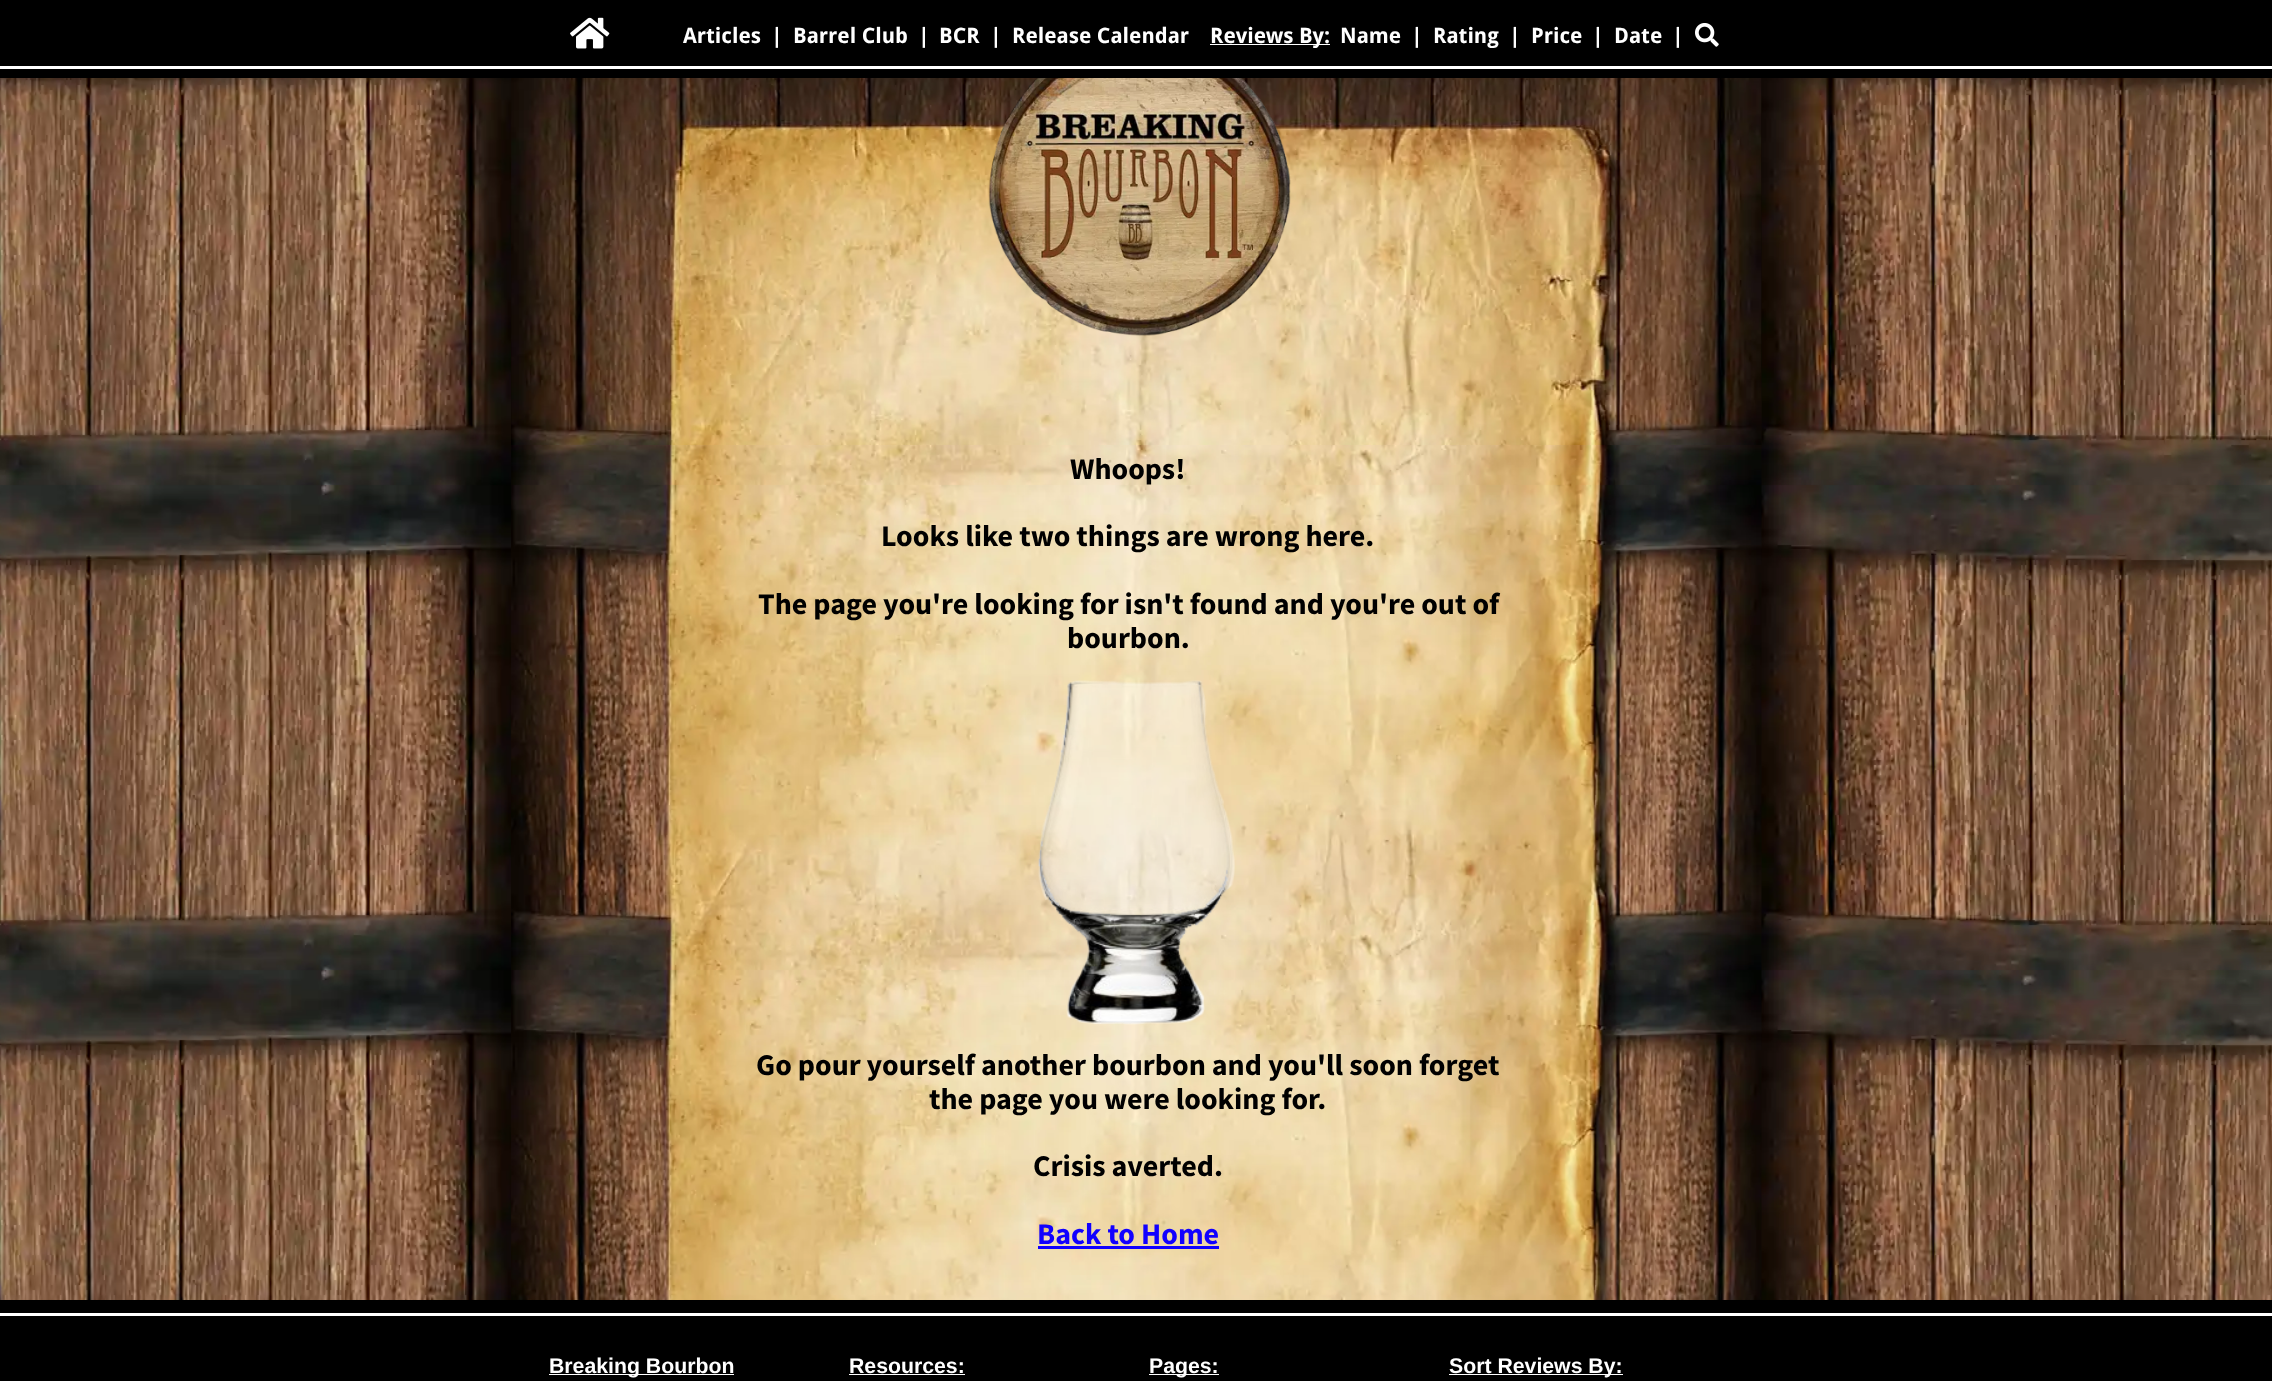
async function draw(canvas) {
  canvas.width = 2272;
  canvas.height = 1381;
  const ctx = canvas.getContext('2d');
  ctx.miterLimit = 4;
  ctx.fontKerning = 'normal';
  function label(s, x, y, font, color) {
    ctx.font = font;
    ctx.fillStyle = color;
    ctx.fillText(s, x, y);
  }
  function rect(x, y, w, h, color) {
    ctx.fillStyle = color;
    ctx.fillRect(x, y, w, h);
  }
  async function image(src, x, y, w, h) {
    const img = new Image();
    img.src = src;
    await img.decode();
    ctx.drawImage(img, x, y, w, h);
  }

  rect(0, 0, 2272, 1381, '#fff');
  await image('assets/img1.png', 0, 78, 2272, 1222);
  rect(0, 0, 2272, 78, '#000');
  await image('assets/img2.png', 570, 17, 40, 32);
  label('Articles', 683, 43, 'bold 21.25px Droid Sans', '#fff');
  label('|', 771, 43, 'bold 21.25px Droid Sans', '#fff');
  label('Barrel Club', 793, 43, 'bold 21.25px Droid Sans', '#fff');
  label('|', 918, 43, 'bold 21.25px Droid Sans', '#fff');
  label('BCR', 939, 43, 'bold 21.25px Droid Sans', '#fff');
  label('|', 990, 43, 'bold 21.25px Droid Sans', '#fff');
  label('Release Calendar', 1012, 43, 'bold 21.25px Droid Sans', '#fff');
  rect(1210, 44, 120, 1, '#fff');
  label('Reviews By:', 1210, 43, 'bold 21.25px Droid Sans', '#fff');
  label('Name', 1340, 43, 'bold 21.25px Droid Sans', '#fff');
  label('|', 1411, 43, 'bold 21.25px Droid Sans', '#fff');
  label('Rating', 1433, 43, 'bold 21.25px Droid Sans', '#fff');
  label('|', 1509, 43, 'bold 21.25px Droid Sans', '#fff');
  label('Price', 1531, 43, 'bold 21.25px Droid Sans', '#fff');
  label('|', 1592, 43, 'bold 21.25px Droid Sans', '#fff');
  label('Date', 1614, 43, 'bold 21.25px Droid Sans', '#fff');
  label('|', 1672, 43, 'bold 21.25px Droid Sans', '#fff');
  await image('assets/img3.png', 1695, 23, 24, 24);
  rect(0, 66, 2272, 3, '#fff');
  await image('assets/img4.png', 511, 78, 1251, 367);
  await image('assets/img5.png', 988, 78, 303, 258);
  label('Whoops!', 1070, 479, 'bold 30px Source Sans Pro', '#000');
  label('Looks like two things are wrong here.', 881, 546, 'bold 30px Source Sans Pro', '#000');
  label('The page you\'re looking for isn\'t found and you\'re out of', 758, 614, 'bold 30px Source Sans Pro', '#000');
  label('bourbon.', 1067, 648, 'bold 30px Source Sans Pro', '#000');
  await image('assets/img6.png', 1038, 680, 197, 345);
  label('Go pour yourself another bourbon and you\'ll soon forget', 756, 1075, 'bold 30px Source Sans Pro', '#000');
  label('the page you were looking for.', 929, 1109, 'bold 30px Source Sans Pro', '#000');
  label('Crisis averted.', 1033, 1176, 'bold 30px Source Sans Pro', '#000');
  label('Back to Home', 1037, 1244, 'bold 30px Source Sans Pro', '#10f');
  rect(1038, 1246, 181, 3, '#10f');
  rect(0, 1300, 2272, 81, '#000');
  rect(0, 1313, 2272, 3, '#fff');
  rect(549, 1374, 185, 1, '#fff');
  label('Breaking Bourbon', 549, 1373, 'bold 21.25px Liberation Sans', '#fff');
  label('Resources:', 849, 1373, 'bold 21.25px Liberation Sans', '#fff');
  rect(849, 1374, 116, 1, '#fff');
  rect(1149, 1374, 70, 1, '#fff');
  label('Pages:', 1149, 1373, 'bold 21.25px Liberation Sans', '#fff');
  rect(1449, 1374, 174, 1, '#fff');
  label('Sort Reviews By:', 1449, 1373, 'bold 21.25px Liberation Sans', '#fff');
}

draw(document.querySelector('canvas'));
